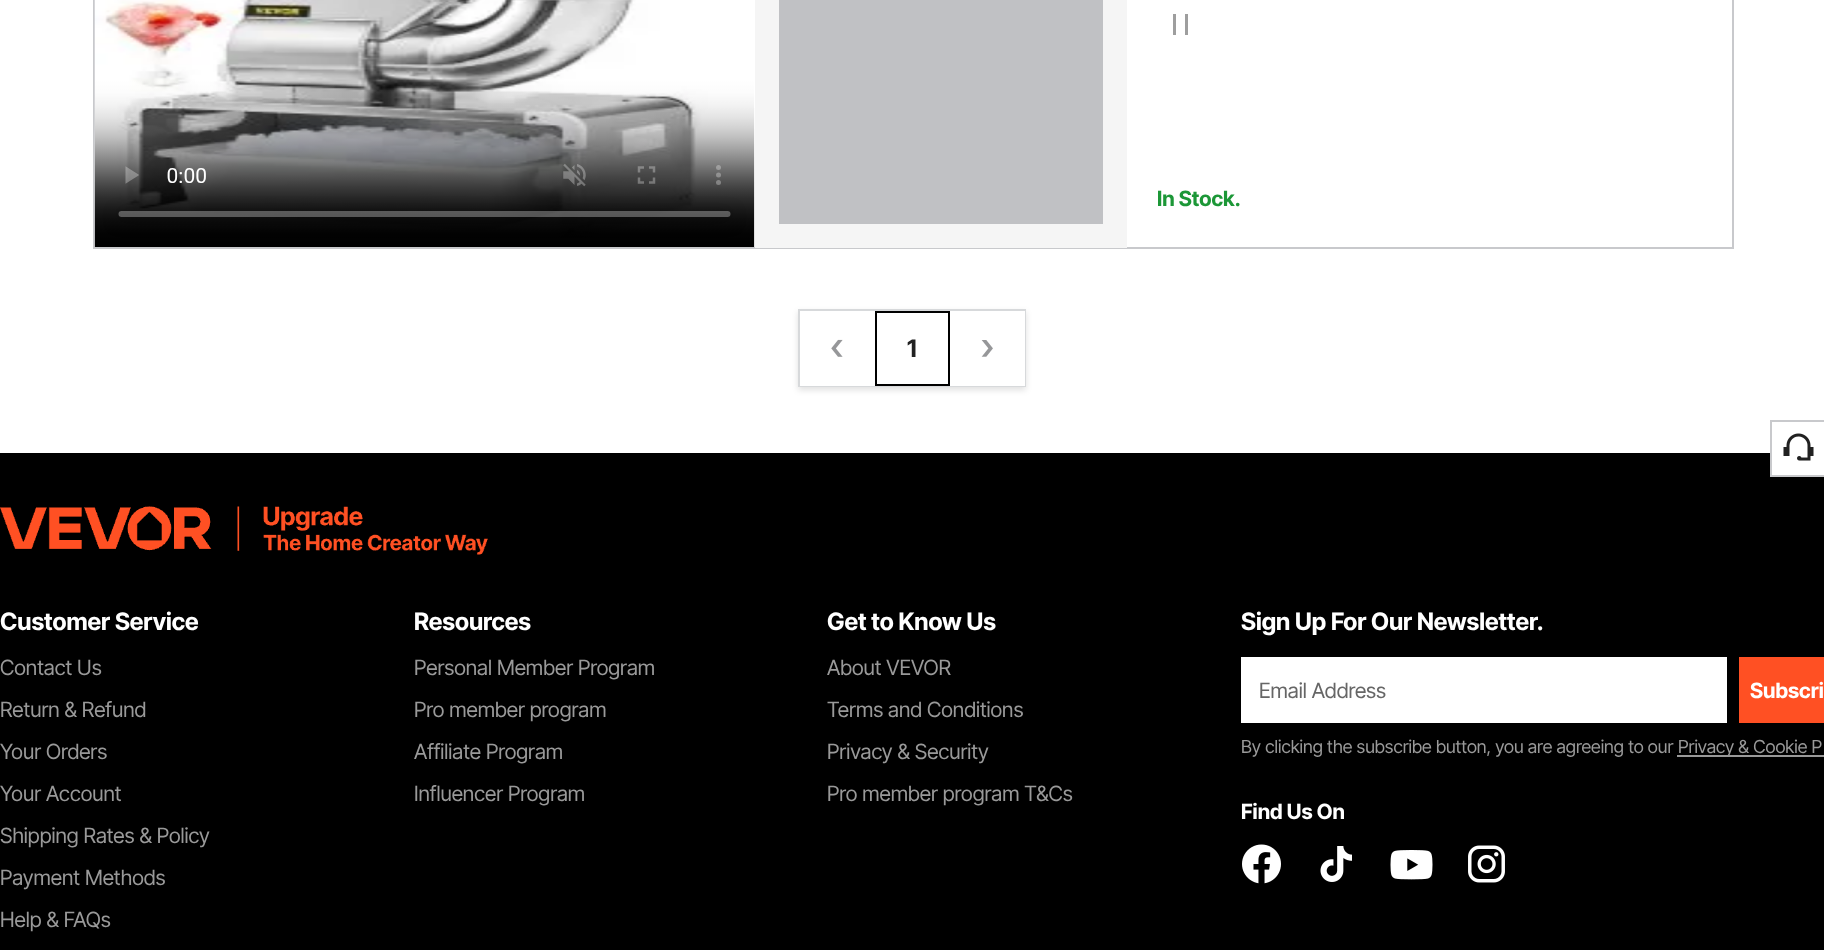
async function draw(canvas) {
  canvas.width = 1824;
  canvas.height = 950;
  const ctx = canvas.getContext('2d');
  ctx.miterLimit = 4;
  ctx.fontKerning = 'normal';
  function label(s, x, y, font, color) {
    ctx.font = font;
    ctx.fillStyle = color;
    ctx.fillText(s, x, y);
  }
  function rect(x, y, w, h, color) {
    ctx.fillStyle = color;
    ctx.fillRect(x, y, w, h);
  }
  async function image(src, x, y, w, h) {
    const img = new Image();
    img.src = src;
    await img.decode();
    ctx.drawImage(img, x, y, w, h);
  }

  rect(0, 0, 1824, 950, '#000');
  rect(0, 0, 1824, 453, '#fff');
  ctx.strokeStyle = '#c8c9cc';
  ctx.lineWidth = 2;
  ctx.strokeRect(94, -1, 1639, 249);
  await image('assets/img1.png', 94, 0, 661, 247);
  rect(755, 247, 372, 1, '#fff');
  rect(779, 0, 324, 224, '#c8c9cc');
  rect(755, 0, 372, 248, '#0000000a');
  rect(1173, 14, 3, 21, '#9e9e9e');
  rect(1185, 14, 3, 21, '#9e9e9e');
  label('In Stock.', 1157, 206, 'bold 21px Inter Tight', '#1c9737');
  ctx.fillStyle = '#0000001f';
  ctx.filter = 'blur(3px)';
  ctx.beginPath();
  ctx.rect(798, 312, 228, 78);
  ctx.fill();
  ctx.filter = 'none';
  ctx.strokeStyle = '#d7d9db';
  ctx.strokeRect(799, 310, 226, 76);
  rect(800, 311, 75, 75, '#fff');
  await image('assets/img2.png', 831, 339, 12, 18);
  ctx.beginPath();
  ctx.rect(876, 312, 73, 73);
  ctx.fill();
  ctx.strokeStyle = '#000';
  ctx.stroke();
  label('1', 907, 357, 'bold 24px Inter Tight', '#212121');
  rect(950, 311, 75, 75, '#fff');
  await image('assets/img3.png', 981, 340, 12, 17);
  rect(1772, 453, 52, 22, '#fff');
  ctx.strokeStyle = '#c8c9cc';
  ctx.strokeRect(1771, 421, 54, 55);
  await image('assets/img4.png', 1783, 433, 31, 28);
  await image('assets/img5.png', 0, 506, 488, 49);
  label('Customer Service', 0, 630, 'bold 24px Inter Tight', '#fff');
  label('Contact Us', 0, 675, '21px Inter Tight', '#999');
  label('Return & Refund', 0, 717, '21px Inter Tight', '#999');
  label('Your Orders', 0, 759, '21px Inter Tight', '#999');
  label('Your Account', 0, 801, '21px Inter Tight', '#999');
  label('Shipping Rates & Policy', 0, 843, '21px Inter Tight', '#999');
  label('Payment Methods', 0, 885, '21px Inter Tight', '#999');
  label('Help & FAQs', 0, 927, '21px Inter Tight', '#999');
  label('Resources', 414, 630, 'bold 24px Inter Tight', '#fff');
  label('Personal Member Program', 414, 675, '21px Inter Tight', '#999');
  label('Pro member program', 414, 717, '21px Inter Tight', '#999');
  label('Affiliate Program', 414, 759, '21px Inter Tight', '#999');
  label('Influencer Program', 414, 801, '21px Inter Tight', '#999');
  label('Get to Know Us', 827, 630, 'bold 24px Inter Tight', '#fff');
  label('About VEVOR', 827, 675, '21px Inter Tight', '#999');
  label('Terms and Conditions', 827, 717, '21px Inter Tight', '#999');
  label('Privacy & Security', 827, 759, '21px Inter Tight', '#999');
  label('Pro member program T&Cs', 827, 801, '21px Inter Tight', '#999');
  label('Sign Up For Our Newsletter.', 1241, 630, 'bold 24px Inter Tight', '#fff');
  rect(1241, 657, 486, 66, '#fff');
  label('Email Address', 1259, 698, '21px Inter Tight', '#666');
  rect(1739, 657, 85, 66, '#ff5023');
  label('Subscri', 1750, 698, 'bold 21px Inter Tight', '#fff');
  label('By clicking the subscribe button, you are agreeing to our', 1241, 753, '18px Inter Tight', '#999');
  rect(1677, 755, 147, 2, '#999');
  label('Privacy & Cookie P', 1678, 753, '18px Inter Tight', '#999');
  label('Find Us On', 1241, 819, 'bold 21px Inter Tight', '#fff');
  await image('assets/img6.png', 1242, 844, 39, 40);
  await image('assets/img7.png', 1320, 846, 32, 36);
  await image('assets/img8.png', 1390, 850, 43, 30);
  await image('assets/img9.png', 1468, 845, 37, 38);
}

draw(document.querySelector('canvas'));
